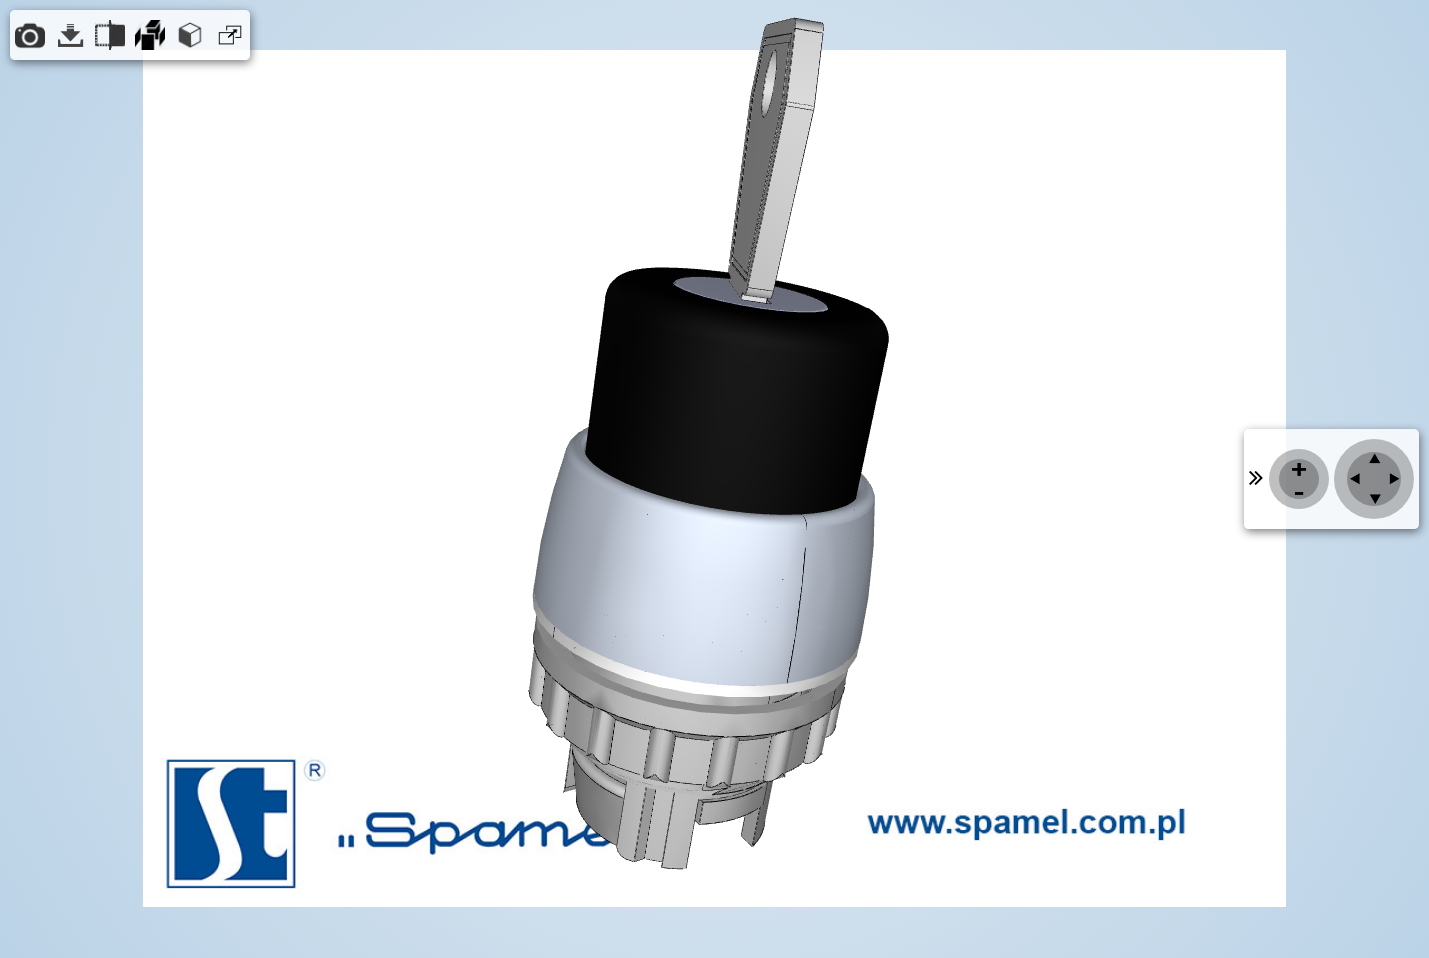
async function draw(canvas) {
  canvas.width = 1429;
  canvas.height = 958;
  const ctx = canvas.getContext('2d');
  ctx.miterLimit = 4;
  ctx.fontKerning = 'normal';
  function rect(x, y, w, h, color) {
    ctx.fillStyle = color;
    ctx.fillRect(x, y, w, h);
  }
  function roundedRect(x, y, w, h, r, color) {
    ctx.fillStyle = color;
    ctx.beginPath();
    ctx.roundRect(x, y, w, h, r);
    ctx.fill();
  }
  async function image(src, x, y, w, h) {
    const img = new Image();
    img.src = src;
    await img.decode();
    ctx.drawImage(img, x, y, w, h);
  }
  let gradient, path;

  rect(0, 0, 1429, 958, '#fff');
  gradient = ctx.createRadialGradient(715, 479, 0, 715, 479, 860);
  gradient.addColorStop(0, '#e3ebf2');
  gradient.addColorStop(1, '#bbd3e7');
  ctx.fillStyle = gradient;
  ctx.fillRect(0, 0, 1429, 958);
  await image('assets/img7.png', 143, 50, 1143, 857);
  ctx.save();
  path = new Path2D('M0 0H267V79H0ZM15 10H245C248 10 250 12 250 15V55C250 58 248 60 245 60H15C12 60 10 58 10 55V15C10 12 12 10 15 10Z');
  ctx.clip(path, 'evenodd');
  ctx.fillStyle = '#00000080';
  ctx.filter = 'blur(5px)';
  ctx.beginPath();
  ctx.roundRect(11, 13, 240, 50, 5);
  ctx.fill();
  ctx.filter = 'none';
  ctx.restore();
  roundedRect(10, 10, 240, 50, 5, '#ffffffcc');
  await image('assets/img1.png', 15, 22, 30, 27);
  await image('assets/img2.png', 58, 24, 26, 23);
  await image('assets/img3.png', 95, 20, 30, 30);
  await image('assets/img4.png', 135, 20, 30, 30);
  await image('assets/img5.png', 178, 22, 24, 26);
  await image('assets/img6.png', 218, 25, 24, 20);
  await image('assets/img8.png', 528, 17, 361, 853);
  ctx.save();
  path = new Path2D('M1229 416H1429V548H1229ZM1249 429H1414C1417 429 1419 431 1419 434V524C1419 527 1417 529 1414 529H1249C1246 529 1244 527 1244 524V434C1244 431 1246 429 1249 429Z');
  ctx.clip(path, 'evenodd');
  ctx.fillStyle = '#00000080';
  ctx.filter = 'blur(5px)';
  ctx.beginPath();
  ctx.roundRect(1245, 432, 175, 100, 5);
  ctx.fill();
  ctx.filter = 'none';
  ctx.restore();
  roundedRect(1244, 429, 175, 100, 5, '#ffffffcc');
  await image('assets/img9.png', 1249, 471, 14, 14);
  await image('assets/img10.png', 1292, 463, 15, 33);
  ctx.fillStyle = '#00000040';
  ctx.beginPath();
  ctx.arc(1299, 479, 30, 0, 2 * Math.PI);
  ctx.fill();
  ctx.beginPath();
  ctx.arc(1299, 479, 20, 0, 2 * Math.PI);
  ctx.fill();
  await image('assets/img11.png', 1350, 453, 50, 51);
  ctx.beginPath();
  ctx.arc(1374, 479, 40, 0, 2 * Math.PI);
  ctx.fill();
  ctx.beginPath();
  ctx.arc(1374, 479, 27, 0, 2 * Math.PI);
  ctx.fill();
}

draw(document.querySelector('canvas'));
